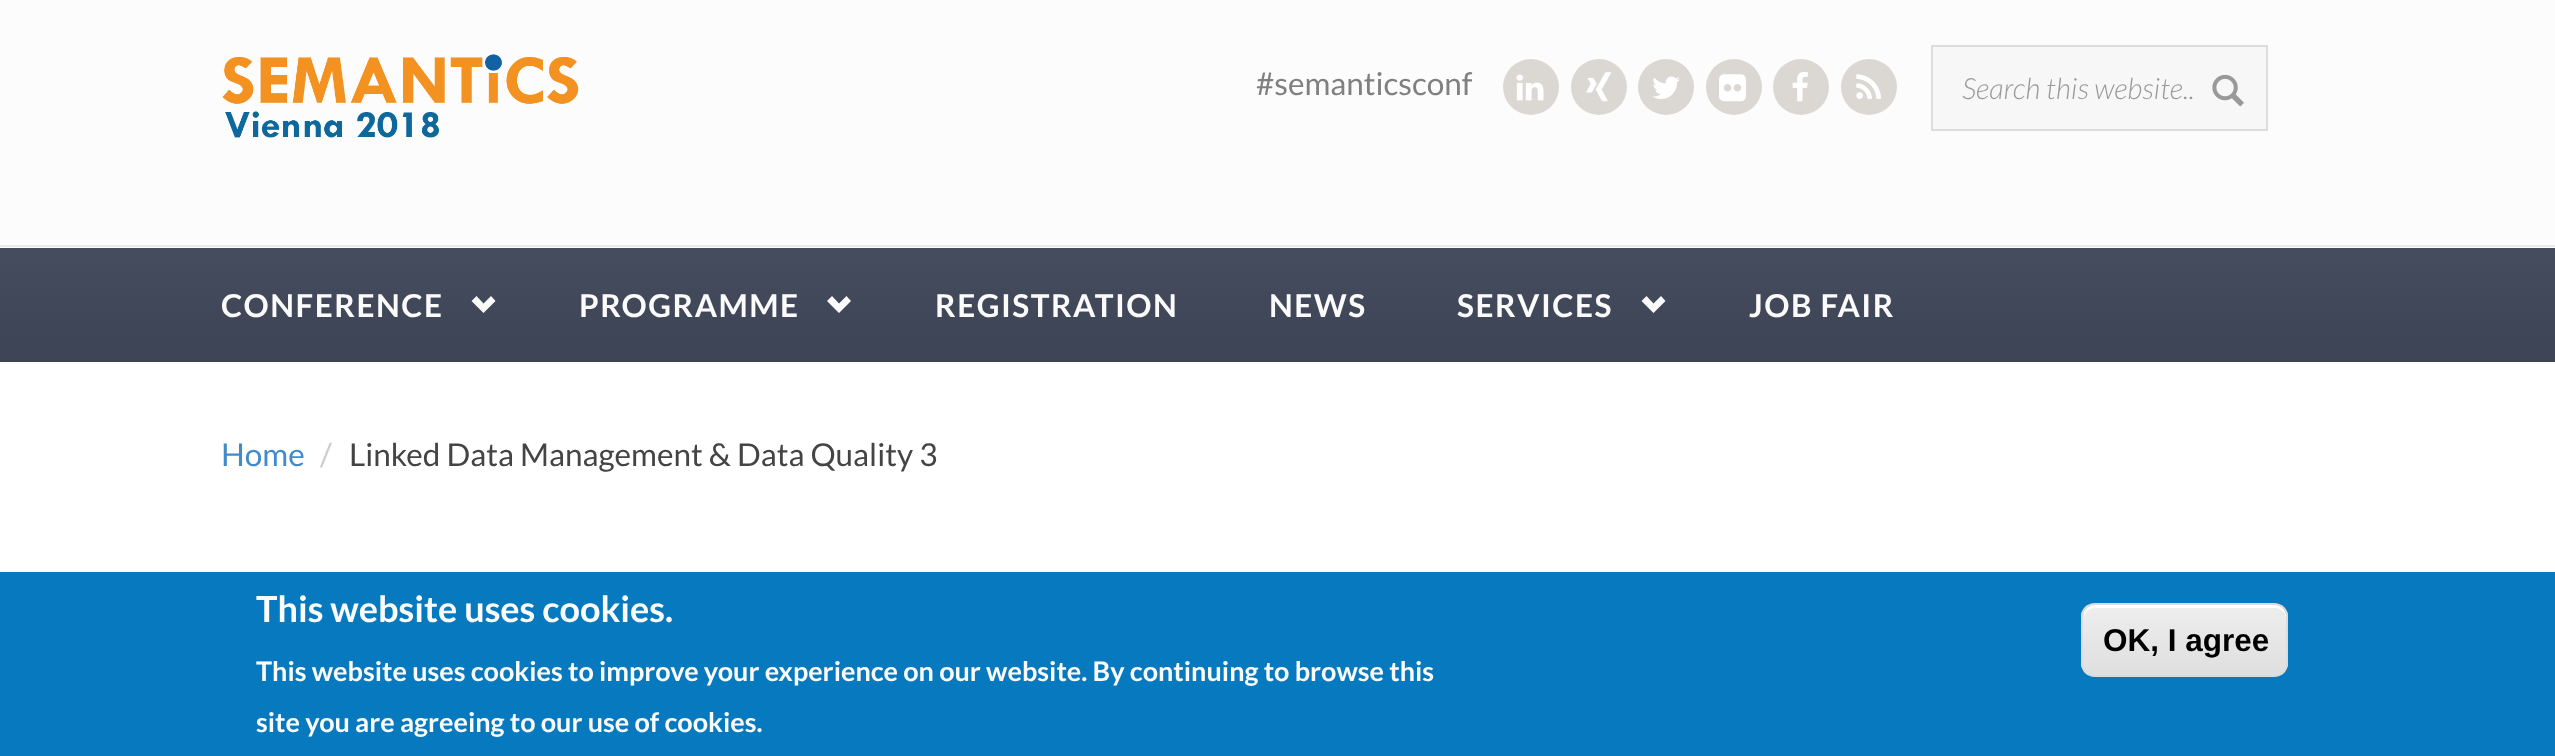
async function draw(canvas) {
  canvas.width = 2555;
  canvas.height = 756;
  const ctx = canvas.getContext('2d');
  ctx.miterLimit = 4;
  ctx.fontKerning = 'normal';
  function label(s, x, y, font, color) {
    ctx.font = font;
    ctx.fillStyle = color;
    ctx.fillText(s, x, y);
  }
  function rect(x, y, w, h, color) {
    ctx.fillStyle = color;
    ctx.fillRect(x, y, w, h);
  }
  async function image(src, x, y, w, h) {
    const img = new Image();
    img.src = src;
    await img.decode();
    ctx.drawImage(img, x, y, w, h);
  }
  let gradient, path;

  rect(0, 0, 2555, 756, '#fff');
  rect(0, 0, 2555, 248, '#fcfcfc');
  rect(0, 245, 2555, 2, '#eaeaea');
  await image('assets/img1.png', 222, 54, 357, 84);
  label('#semanticsconf', 1256, 95, '31.5px Lato', '#808080');
  ctx.fillStyle = '#dbd8d3';
  ctx.beginPath();
  ctx.arc(1531, 87, 28, 0, 2 * Math.PI);
  ctx.fill();
  await image('assets/img2.png', 1516, 74, 28, 27);
  ctx.beginPath();
  ctx.arc(1599, 87, 28, 0, 2 * Math.PI);
  ctx.fill();
  await image('assets/img3.png', 1586, 72, 25, 30);
  ctx.beginPath();
  ctx.arc(1666, 87, 28, 0, 2 * Math.PI);
  ctx.fill();
  await image('assets/img4.png', 1652, 76, 28, 23);
  ctx.beginPath();
  ctx.arc(1734, 87, 28, 0, 2 * Math.PI);
  ctx.fill();
  await image('assets/img5.png', 1719, 74, 27, 28);
  ctx.beginPath();
  ctx.arc(1801, 87, 28, 0, 2 * Math.PI);
  ctx.fill();
  await image('assets/img6.png', 1792, 72, 16, 30);
  ctx.beginPath();
  ctx.arc(1869, 87, 28, 0, 2 * Math.PI);
  ctx.fill();
  await image('assets/img7.png', 1856, 74, 25, 25);
  ctx.fillStyle = '#f7f7f7';
  ctx.beginPath();
  ctx.rect(1932, 46, 335, 84);
  ctx.fill();
  ctx.strokeStyle = '#ddd';
  ctx.lineWidth = 2;
  ctx.stroke();
  label('Search this website..', 1962, 99, 'italic 300 29.25px Lato', '#999');
  await image('assets/img8.png', 2212, 74, 32, 33);
  gradient = ctx.createLinearGradient(1278, 247, 1278, 362);
  gradient.addColorStop(0, '#454c5d');
  gradient.addColorStop(1, '#3d4455');
  ctx.fillStyle = gradient;
  ctx.fillRect(0, 248, 2555, 114);
  ctx.letterSpacing = '1.5px';
  label('CONFERENCE', 221, 317, 'bold 31.5px Lato', '#fbfbfb');
  path = new Path2D('M471.5 301L483.5 313L495.5 301L491 296L483.5 303.5L476.5 296Z');
  ctx.fill(path);
  label('PROGRAMME', 579, 317, 'bold 31.5px Lato', '#fbfbfb');
  path = new Path2D('M827 301L839 313L851 301L846.5 296L839 303.5L832 296Z');
  ctx.fill(path);
  label('REGISTRATION', 935, 317, 'bold 31.5px Lato', '#fbfbfb');
  label('NEWS', 1269, 317, 'bold 31.5px Lato', '#fbfbfb');
  label('SERVICES', 1457, 317, 'bold 31.5px Lato', '#fbfbfb');
  path = new Path2D('M1641.5 301L1653.5 313L1665.5 301L1661 296L1653.5 303.5L1646.5 296Z');
  ctx.fill(path);
  label('JOB FAIR', 1749, 317, 'bold 31.5px Lato', '#fbfbfb');
  ctx.letterSpacing = '0px';
  label('Home', 221, 466, '31.5px Lato', '#428bca');
  label('/', 320, 466, '31.5px Lato', '#ccc');
  label('Linked Data Management & Data Quality 3', 349, 466, '31.5px Lato', '#444');
  rect(0, 572, 2555, 184, '#0779bf');
  label('This website uses cookies.', 256, 622, 'bold 36px Lato', '#fbfbfb');
  label('This website uses cookies to improve your experience on our website. By continuing to browse this', 256, 681, 'bold 27px Lato', '#fbfbfb');
  label('site you are agreeing to our use of cookies.', 256, 732, 'bold 27px Lato', '#fbfbfb');
  ctx.save();
  ctx.beginPath();
  ctx.roundRect(2081, 603, 207, 74, 14);
  ctx.clip();
  gradient = ctx.createLinearGradient(2185, 605, 2185, 675);
  gradient.addColorStop(0.05, '#ededed');
  gradient.addColorStop(1, '#dfdfdf');
  ctx.fillStyle = gradient;
  ctx.fillRect(2081, 605, 207, 70);
  ctx.restore();
  ctx.fillStyle = '#fff';
  path = new Path2D('M2095 608H2275C2281 608 2286 613 2286 619V616C2286 610 2281 605 2275 605H2095C2089 605 2084 610 2084 616V619C2084 613 2089 608 2095 608Z');
  ctx.fill(path);
  ctx.beginPath();
  ctx.roundRect(2082, 604, 205, 72, 13);
  ctx.strokeStyle = '#dcdcdc';
  ctx.stroke();
  label('OK, I agree', 2103, 651, 'bold 31.5px Liberation Sans', '#000');
}

draw(document.querySelector('canvas'));
